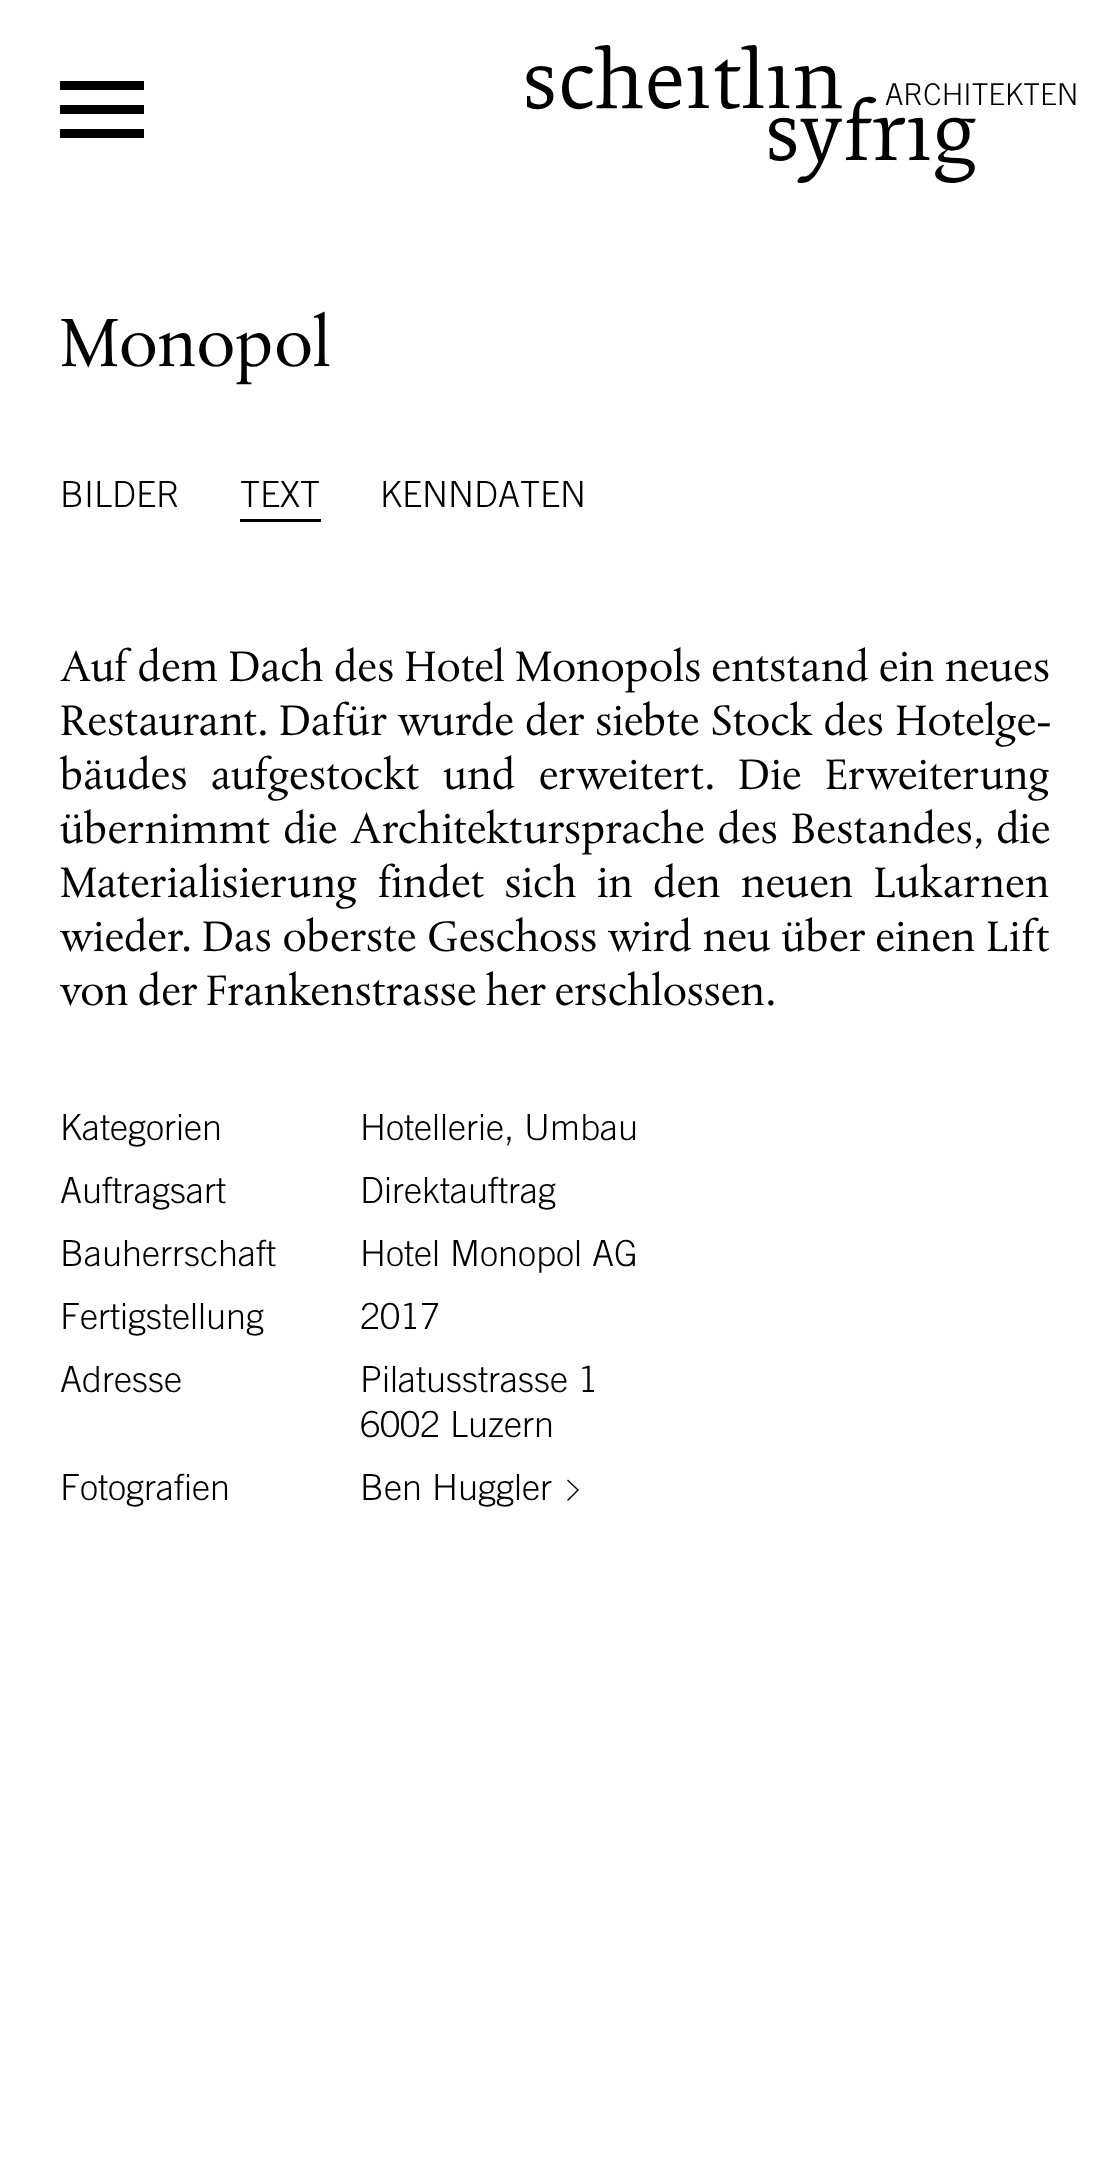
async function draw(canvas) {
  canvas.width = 1108;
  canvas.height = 2165;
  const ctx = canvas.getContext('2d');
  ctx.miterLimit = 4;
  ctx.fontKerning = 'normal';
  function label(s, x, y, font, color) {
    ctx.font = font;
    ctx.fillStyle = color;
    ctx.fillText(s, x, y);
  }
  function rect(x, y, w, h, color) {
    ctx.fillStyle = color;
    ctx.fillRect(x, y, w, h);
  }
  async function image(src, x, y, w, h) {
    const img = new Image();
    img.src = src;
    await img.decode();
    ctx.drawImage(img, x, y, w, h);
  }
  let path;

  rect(0, 0, 1108, 2165, '#fff');
  await image('assets/img1.png', 60, 81, 84, 57);
  await image('assets/img2.png', 526, 45, 450, 138);
  label('ARCHITEKTEN', 885, 105, '300 30px Trade Gothic', '#000');
  label('Monopol', 60, 366, '72px "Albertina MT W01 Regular"', '#000');
  label('BILDER', 60, 507, '300 36px Trade Gothic', '#000');
  rect(240, 519, 81, 3, '#000');
  label('TEXT', 240, 507, '300 36px Trade Gothic', '#000');
  label('KENNDATEN', 380, 507, '300 36px Trade Gothic', '#000');
  ctx.wordSpacing = '1px';
  label('Auf dem Dach des Hotel Monopols entstand ein neues', 60, 681, '45px "Albertina MT W01 Regular"', '#000');
  ctx.wordSpacing = '2.25px';
  label('Restaurant. Dafür wurde der siebte Stock des Hotelge-', 60, 735, '45px "Albertina MT W01 Regular"', '#000');
  ctx.wordSpacing = '14.5px';
  label('bäudes aufgestockt und erweitert. Die Erweiterung', 60, 789, '45px "Albertina MT W01 Regular"', '#000');
  ctx.wordSpacing = '4px';
  label('übernimmt die Architektursprache des Bestandes, die', 60, 843, '45px "Albertina MT W01 Regular"', '#000');
  ctx.wordSpacing = '11px';
  label('Materialisierung findet sich in den neuen Lukarnen', 60, 897, '45px "Albertina MT W01 Regular"', '#000');
  ctx.wordSpacing = '1.5px';
  label('wieder. Das oberste Geschoss wird neu über einen Lift', 60, 951, '45px "Albertina MT W01 Regular"', '#000');
  ctx.wordSpacing = '0px';
  label('von der Frankenstrasse her erschlossen.', 60, 1005, '45px "Albertina MT W01 Regular"', '#000');
  label('Kategorien', 60, 1140, '300 36px Trade Gothic', '#000');
  label('Hotellerie, Umbau', 360, 1140, '300 36px Trade Gothic', '#000');
  label('Auftragsart', 60, 1203, '300 36px Trade Gothic', '#000');
  label('Direktauftrag', 360, 1203, '300 36px Trade Gothic', '#000');
  label('Bauherrschaft', 60, 1266, '300 36px Trade Gothic', '#000');
  label('Hotel Monopol AG', 360, 1266, '300 36px Trade Gothic', '#000');
  label('Fertigstellung', 60, 1329, '300 36px Trade Gothic', '#000');
  label('2017', 360, 1329, '300 36px Trade Gothic', '#000');
  label('Adresse', 60, 1392, '300 36px Trade Gothic', '#000');
  label('Pilatusstrasse 1', 360, 1392, '300 36px Trade Gothic', '#000');
  label('6002 Luzern', 360, 1437, '300 36px Trade Gothic', '#000');
  label('Fotografien', 60, 1500, '300 36px Trade Gothic', '#000');
  label('Ben Huggler', 360, 1500, '300 36px Trade Gothic', '#000');
  path = new Path2D('M568 1479.5L567 1480.5L577 1490L567 1500L568 1501L579 1490Z');
  ctx.fill(path);
}

draw(document.querySelector('canvas'));
